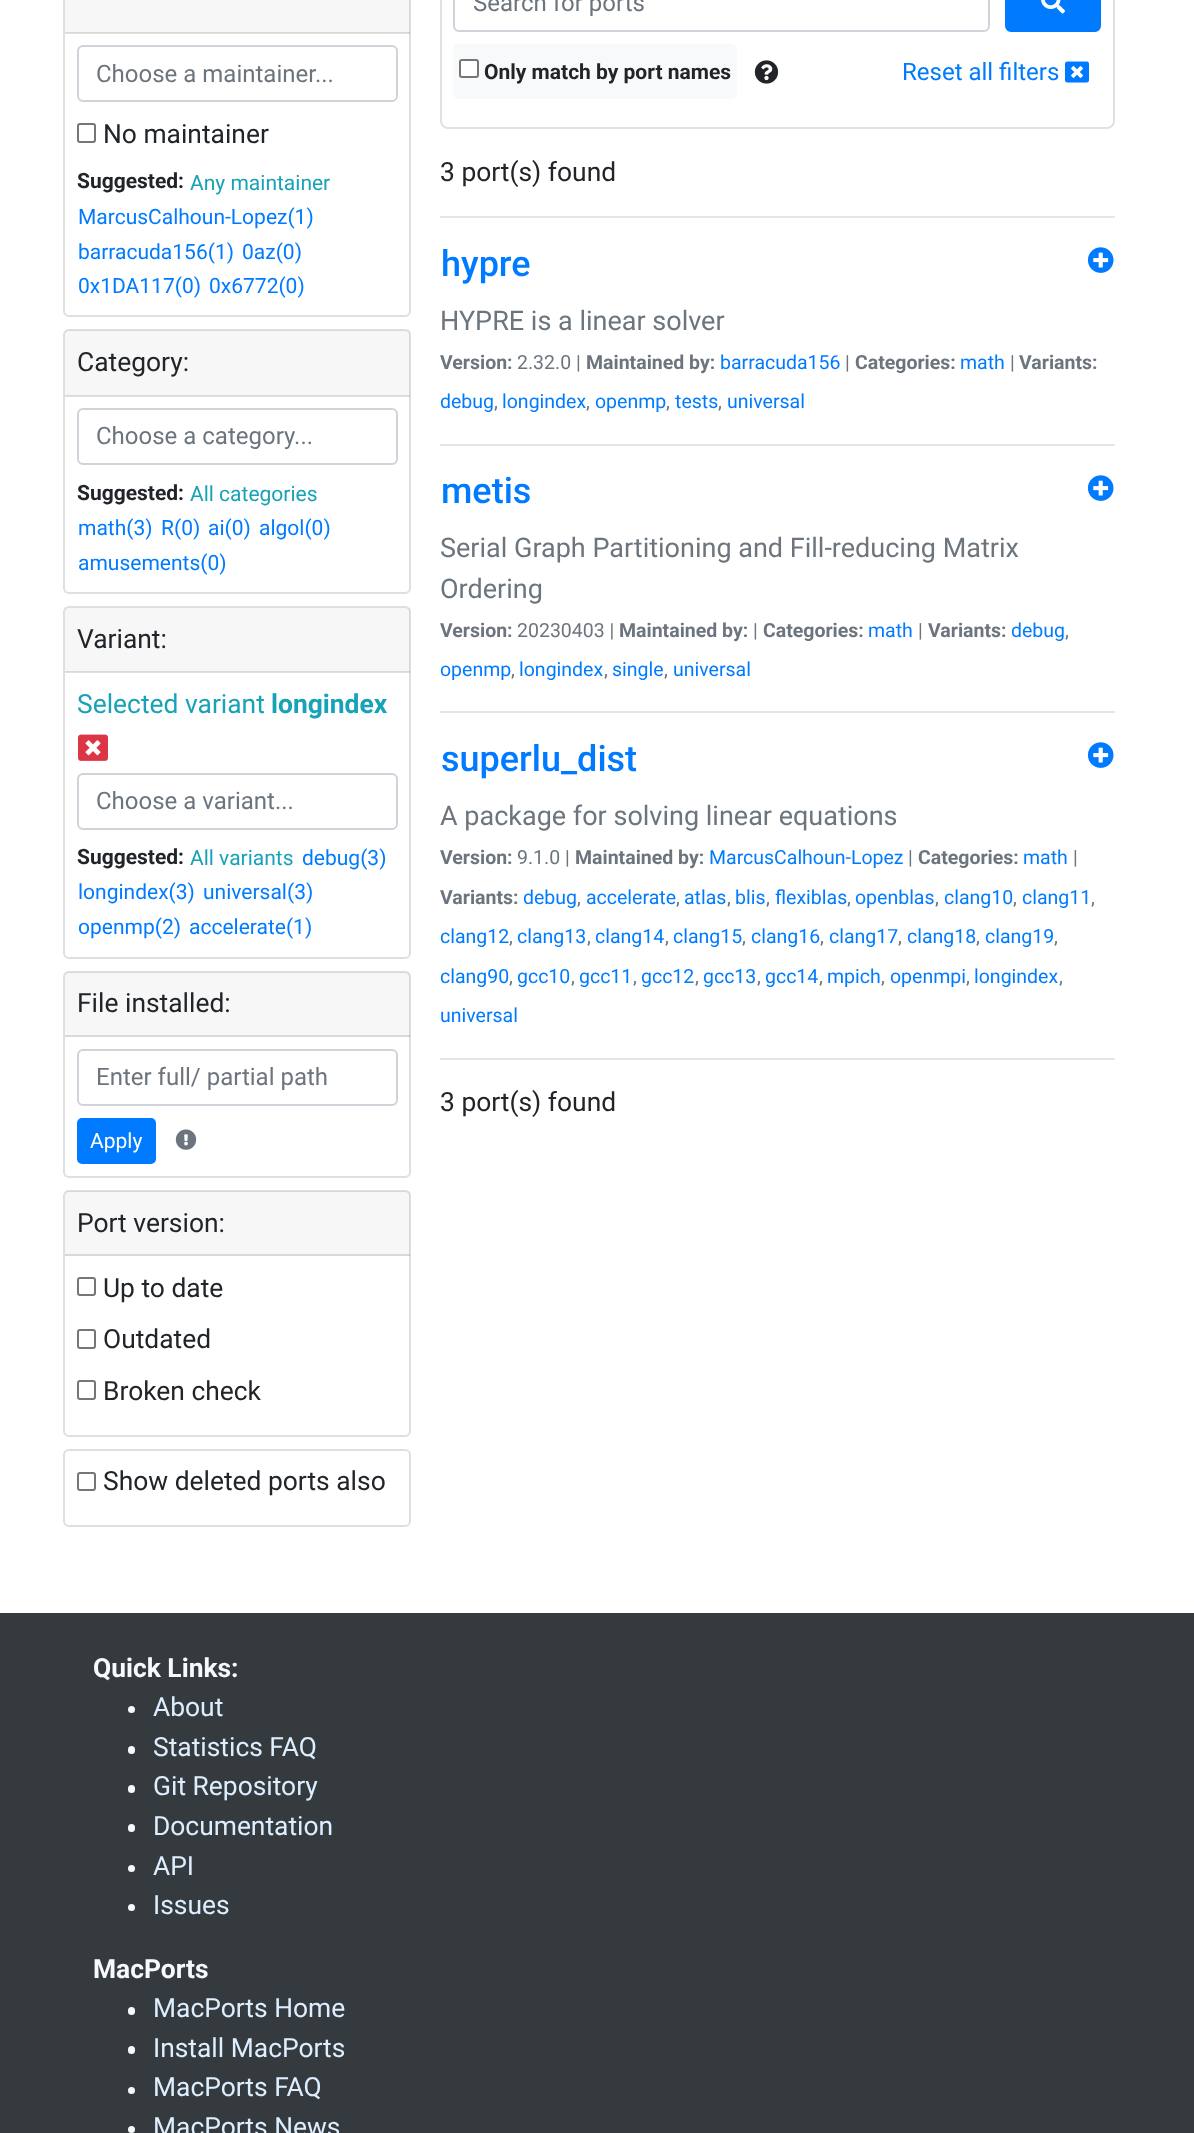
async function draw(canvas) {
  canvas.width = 1194;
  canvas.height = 2133;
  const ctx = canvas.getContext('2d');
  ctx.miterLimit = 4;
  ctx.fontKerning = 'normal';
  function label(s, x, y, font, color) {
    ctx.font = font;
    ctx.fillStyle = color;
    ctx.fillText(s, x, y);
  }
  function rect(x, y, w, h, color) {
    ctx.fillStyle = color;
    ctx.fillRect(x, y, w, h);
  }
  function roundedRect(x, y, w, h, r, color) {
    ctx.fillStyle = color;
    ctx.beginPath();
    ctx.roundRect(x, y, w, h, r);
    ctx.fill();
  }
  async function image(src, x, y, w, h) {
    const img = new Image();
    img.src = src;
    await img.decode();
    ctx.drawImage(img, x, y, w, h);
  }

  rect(0, 0, 1194, 2133, '#fff');
  ctx.beginPath();
  ctx.roundRect(64, -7, 346, 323, 5);
  ctx.strokeStyle = '#dfdfdf';
  ctx.lineWidth = 2;
  ctx.stroke();
  rect(65, 0, 345, 33, '#00000008');
  rect(65, 32, 345, 2, '#0000001f');
  ctx.beginPath();
  ctx.roundRect(78, 46, 319, 55, 5);
  ctx.strokeStyle = '#ced4da';
  ctx.stroke();
  label('Choose a maintainer...', 96, 82, '24px Roboto', '#6c757d');
  ctx.beginPath();
  ctx.roundRect(78, 124, 17, 18, 2);
  ctx.strokeStyle = '#767676';
  ctx.stroke();
  label('No maintainer', 103, 143, '26.4px Roboto', '#212529');
  label('Suggested:', 77, 188, 'bold 21px Roboto', '#212529');
  label('Any maintainer', 190, 190, '21px Roboto', '#17a2b8');
  label('MarcusCalhoun-Lopez(1)', 78, 224, '21px Roboto', '#007bff');
  label('barracuda156(1)', 78, 259, '21px Roboto', '#007bff');
  label('0az(0)', 242, 259, '21px Roboto', '#007bff');
  label('0x1DA117(0)', 78, 293, '21px Roboto', '#007bff');
  label('0x6772(0)', 209, 293, '21px Roboto', '#007bff');
  ctx.beginPath();
  ctx.roundRect(64, 330, 346, 263, 5);
  ctx.strokeStyle = '#dfdfdf';
  ctx.stroke();
  rect(65, 330, 345, 66, '#00000008');
  rect(65, 395, 345, 2, '#0000001f');
  label('Category:', 77, 371, '26.4px Roboto', '#212529');
  ctx.beginPath();
  ctx.roundRect(78, 409, 319, 55, 5);
  ctx.strokeStyle = '#ced4da';
  ctx.stroke();
  label('Choose a category...', 96, 444, '24px Roboto', '#6c757d');
  label('Suggested:', 77, 500, 'bold 21px Roboto', '#212529');
  label('All categories', 190, 501, '21px Roboto', '#17a2b8');
  label('math(3)', 78, 535, '21px Roboto', '#007bff');
  label('R(0)', 161, 535, '21px Roboto', '#007bff');
  label('ai(0)', 208, 535, '21px Roboto', '#007bff');
  label('algol(0)', 259, 535, '21px Roboto', '#007bff');
  label('amusements(0)', 78, 570, '21px Roboto', '#007bff');
  ctx.beginPath();
  ctx.roundRect(64, 607, 346, 351, 5);
  ctx.strokeStyle = '#dfdfdf';
  ctx.stroke();
  rect(65, 608, 345, 64, '#00000008');
  rect(65, 671, 345, 2, '#0000001f');
  label('Variant:', 77, 648, '26.4px Roboto', '#212529');
  label('Selected variant', 77, 713, '26.4px Roboto', '#17a2b8');
  label('longindex', 271, 713, 'bold 26.4px Roboto', '#17a2b8');
  await image('assets/img1.png', 78, 734, 30, 27);
  ctx.beginPath();
  ctx.roundRect(78, 774, 319, 55, 5);
  ctx.strokeStyle = '#ced4da';
  ctx.stroke();
  label('Choose a variant...', 96, 809, '24px Roboto', '#6c757d');
  label('Suggested:', 77, 864, 'bold 21px Roboto', '#212529');
  label('All variants', 190, 865, '21px Roboto', '#17a2b8');
  label('debug(3)', 302, 865, '21px Roboto', '#007bff');
  label('longindex(3)', 78, 899, '21px Roboto', '#007bff');
  label('universal(3)', 203, 899, '21px Roboto', '#007bff');
  label('openmp(2)', 78, 934, '21px Roboto', '#007bff');
  label('accelerate(1)', 189, 934, '21px Roboto', '#007bff');
  ctx.beginPath();
  ctx.roundRect(64, 972, 346, 205, 5);
  ctx.strokeStyle = '#dfdfdf';
  ctx.stroke();
  rect(65, 972, 345, 65, '#00000008');
  rect(65, 1035, 345, 2, '#0000001f');
  label('File installed:', 77, 1012, '26.4px Roboto', '#212529');
  ctx.beginPath();
  ctx.roundRect(78, 1050, 319, 55, 5);
  ctx.strokeStyle = '#ced4da';
  ctx.stroke();
  label('Enter full/ partial path', 96, 1085, '24px Roboto', '#6c757d');
  ctx.fillStyle = '#007bff';
  ctx.beginPath();
  ctx.roundRect(78, 1119, 77, 44, 4);
  ctx.fill();
  ctx.strokeStyle = '#007bff';
  ctx.stroke();
  label('Apply', 90, 1148, '21px Roboto', '#fff');
  await image('assets/img2.png', 175, 1129, 22, 21);
  ctx.beginPath();
  ctx.roundRect(64, 1191, 346, 245, 5);
  ctx.strokeStyle = '#dfdfdf';
  ctx.stroke();
  rect(65, 1191, 345, 65, '#00000008');
  rect(65, 1254, 345, 2, '#0000001f');
  label('Port version:', 77, 1232, '26.4px Roboto', '#212529');
  ctx.beginPath();
  ctx.roundRect(78, 1278, 17, 17, 2);
  ctx.strokeStyle = '#767676';
  ctx.stroke();
  label('Up to date', 103, 1297, '26.4px Roboto', '#212529');
  ctx.beginPath();
  ctx.roundRect(78, 1330, 17, 18, 2);
  ctx.stroke();
  label('Outdated', 103, 1348, '26.4px Roboto', '#212529');
  ctx.beginPath();
  ctx.roundRect(78, 1381, 17, 18, 2);
  ctx.stroke();
  label('Broken check', 103, 1400, '26.4px Roboto', '#212529');
  ctx.beginPath();
  ctx.roundRect(64, 1450, 346, 76, 5);
  ctx.strokeStyle = '#dfdfdf';
  ctx.stroke();
  ctx.beginPath();
  ctx.roundRect(78, 1473, 17, 17, 2);
  ctx.strokeStyle = '#767676';
  ctx.stroke();
  label('Show deleted ports also', 103, 1490, '26.4px Roboto', '#212529');
  ctx.beginPath();
  ctx.roundRect(441, -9, 673, 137, 7);
  ctx.strokeStyle = '#dee2e6';
  ctx.stroke();
  ctx.beginPath();
  ctx.roundRect(454, -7, 535, 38, 5);
  ctx.strokeStyle = '#ced4da';
  ctx.stroke();
  label('Search for ports', 473, 11, '24px Roboto', '#6c757d');
  ctx.fillStyle = '#007bff';
  ctx.beginPath();
  ctx.roundRect(1006, -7, 94, 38, 5);
  ctx.fill();
  ctx.strokeStyle = '#007bff';
  ctx.stroke();
  await image('assets/img3.png', 1041, 0, 24, 14);
  roundedRect(453, 44, 284, 55, 6, '#f8f9fa');
  ctx.fillStyle = '#fff';
  ctx.beginPath();
  ctx.roundRect(460, 60, 18, 17, 2);
  ctx.fill();
  ctx.strokeStyle = '#767676';
  ctx.stroke();
  label('Only match by port names', 484, 79, 'bold 21px Roboto', '#212529');
  await image('assets/img4.png', 754, 60, 25, 24);
  label('Reset all filters', 902, 80, '24px Roboto', '#007bff');
  await image('assets/img5.png', 1065, 61, 24, 22);
  label('3 port(s) found', 440, 181, '26.4px Roboto', '#212529');
  rect(440, 216, 675, 2, '#e6e6e6');
  label('hypre', 441, 276, '500 36px Roboto', '#007bff');
  await image('assets/img6.png', 1087, 247, 27, 26);
  label('HYPRE is a linear solver', 440, 330, '27px Roboto', '#6c757d');
  label('Version:', 440, 369, 'bold 19.5px Roboto', '#6c757d');
  label('2.32.0 |', 517, 369, '19.5px Roboto', '#6c757d');
  label('Maintained by:', 586, 369, 'bold 19.5px Roboto', '#6c757d');
  label('barracuda156', 720, 369, '19.5px Roboto', '#007bff');
  label('|', 845, 369, '19.5px Roboto', '#6c757d');
  label('Categories:', 855, 369, 'bold 19.5px Roboto', '#6c757d');
  label('math', 960, 369, '19.5px Roboto', '#007bff');
  label('|', 1010, 369, '19.5px Roboto', '#6c757d');
  label('Variants:', 1019, 369, 'bold 19.5px Roboto', '#6c757d');
  label('debug', 440, 408, '19.5px Roboto', '#007bff');
  label(',', 494, 408, '19.5px Roboto', '#6c757d');
  label('longindex', 502, 408, '19.5px Roboto', '#007bff');
  label(',', 586, 408, '19.5px Roboto', '#6c757d');
  label('openmp', 595, 408, '19.5px Roboto', '#007bff');
  label(',', 666, 408, '19.5px Roboto', '#6c757d');
  label('tests', 675, 408, '19.5px Roboto', '#007bff');
  label(',', 718, 408, '19.5px Roboto', '#6c757d');
  label('universal', 727, 408, '19.5px Roboto', '#007bff');
  rect(440, 444, 675, 2, '#e6e6e6');
  label('metis', 441, 503, '500 36px Roboto', '#007bff');
  await image('assets/img6.png', 1087, 475, 27, 26);
  label('Serial Graph Partitioning and Fill-reducing Matrix', 440, 557, '27px Roboto', '#6c757d');
  label('Ordering', 440, 598, '27px Roboto', '#6c757d');
  label('Version:', 440, 637, 'bold 19.5px Roboto', '#6c757d');
  label('20230403 |', 517, 637, '19.5px Roboto', '#6c757d');
  label('Maintained by:', 619, 637, 'bold 19.5px Roboto', '#6c757d');
  label('|', 753, 637, '19.5px Roboto', '#6c757d');
  label('Categories:', 763, 637, 'bold 19.5px Roboto', '#6c757d');
  label('math', 868, 637, '19.5px Roboto', '#007bff');
  label('|', 918, 637, '19.5px Roboto', '#6c757d');
  label('Variants:', 928, 637, 'bold 19.5px Roboto', '#6c757d');
  label('debug', 1011, 637, '19.5px Roboto', '#007bff');
  label(',', 1065, 637, '19.5px Roboto', '#6c757d');
  label('openmp', 440, 676, '19.5px Roboto', '#007bff');
  label(',', 511, 676, '19.5px Roboto', '#6c757d');
  label('longindex', 519, 676, '19.5px Roboto', '#007bff');
  label(',', 604, 676, '19.5px Roboto', '#6c757d');
  label('single', 612, 676, '19.5px Roboto', '#007bff');
  label(',', 664, 676, '19.5px Roboto', '#6c757d');
  label('universal', 673, 676, '19.5px Roboto', '#007bff');
  rect(440, 711, 675, 2, '#e6e6e6');
  label('superlu_dist', 441, 771, '500 36px Roboto', '#007bff');
  await image('assets/img6.png', 1087, 742, 27, 26);
  label('A package for solving linear equations', 440, 825, '27px Roboto', '#6c757d');
  label('Version:', 440, 864, 'bold 19.5px Roboto', '#6c757d');
  label('9.1.0 |', 517, 864, '19.5px Roboto', '#6c757d');
  label('Maintained by:', 575, 864, 'bold 19.5px Roboto', '#6c757d');
  label('MarcusCalhoun-Lopez', 709, 864, '19.5px Roboto', '#007bff');
  label('|', 908, 864, '19.5px Roboto', '#6c757d');
  label('Categories:', 918, 864, 'bold 19.5px Roboto', '#6c757d');
  label('math', 1023, 864, '19.5px Roboto', '#007bff');
  label('|', 1073, 864, '19.5px Roboto', '#6c757d');
  label('Variants:', 440, 904, 'bold 19.5px Roboto', '#6c757d');
  label('debug', 523, 904, '19.5px Roboto', '#007bff');
  label(',', 577, 904, '19.5px Roboto', '#6c757d');
  label('accelerate', 586, 904, '19.5px Roboto', '#007bff');
  label(',', 676, 904, '19.5px Roboto', '#6c757d');
  label('atlas', 684, 904, '19.5px Roboto', '#007bff');
  label(',', 727, 904, '19.5px Roboto', '#6c757d');
  label('blis', 735, 904, '19.5px Roboto', '#007bff');
  label(',', 766, 904, '19.5px Roboto', '#6c757d');
  label('flexiblas', 775, 904, '19.5px Roboto', '#007bff');
  label(',', 847, 904, '19.5px Roboto', '#6c757d');
  label('openblas', 855, 904, '19.5px Roboto', '#007bff');
  label(',', 935, 904, '19.5px Roboto', '#6c757d');
  label('clang10', 944, 904, '19.5px Roboto', '#007bff');
  label(',', 1013, 904, '19.5px Roboto', '#6c757d');
  label('clang11', 1022, 904, '19.5px Roboto', '#007bff');
  label(',', 1091, 904, '19.5px Roboto', '#6c757d');
  label('clang12', 440, 943, '19.5px Roboto', '#007bff');
  label(',', 509, 943, '19.5px Roboto', '#6c757d');
  label('clang13', 517, 943, '19.5px Roboto', '#007bff');
  label(',', 587, 943, '19.5px Roboto', '#6c757d');
  label('clang14', 595, 943, '19.5px Roboto', '#007bff');
  label(',', 665, 943, '19.5px Roboto', '#6c757d');
  label('clang15', 673, 943, '19.5px Roboto', '#007bff');
  label(',', 742, 943, '19.5px Roboto', '#6c757d');
  label('clang16', 751, 943, '19.5px Roboto', '#007bff');
  label(',', 820, 943, '19.5px Roboto', '#6c757d');
  label('clang17', 829, 943, '19.5px Roboto', '#007bff');
  label(',', 898, 943, '19.5px Roboto', '#6c757d');
  label('clang18', 907, 943, '19.5px Roboto', '#007bff');
  label(',', 976, 943, '19.5px Roboto', '#6c757d');
  label('clang19', 985, 943, '19.5px Roboto', '#007bff');
  label(',', 1054, 943, '19.5px Roboto', '#6c757d');
  label('clang90', 440, 983, '19.5px Roboto', '#007bff');
  label(',', 509, 983, '19.5px Roboto', '#6c757d');
  label('gcc10', 517, 983, '19.5px Roboto', '#007bff');
  label(',', 571, 983, '19.5px Roboto', '#6c757d');
  label('gcc11', 579, 983, '19.5px Roboto', '#007bff');
  label(',', 633, 983, '19.5px Roboto', '#6c757d');
  label('gcc12', 641, 983, '19.5px Roboto', '#007bff');
  label(',', 695, 983, '19.5px Roboto', '#6c757d');
  label('gcc13', 703, 983, '19.5px Roboto', '#007bff');
  label(',', 757, 983, '19.5px Roboto', '#6c757d');
  label('gcc14', 765, 983, '19.5px Roboto', '#007bff');
  label(',', 819, 983, '19.5px Roboto', '#6c757d');
  label('mpich', 827, 983, '19.5px Roboto', '#007bff');
  label(',', 881, 983, '19.5px Roboto', '#6c757d');
  label('openmpi', 890, 983, '19.5px Roboto', '#007bff');
  label(',', 966, 983, '19.5px Roboto', '#6c757d');
  label('longindex', 974, 983, '19.5px Roboto', '#007bff');
  label(',', 1059, 983, '19.5px Roboto', '#6c757d');
  label('universal', 440, 1022, '19.5px Roboto', '#007bff');
  rect(440, 1058, 675, 2, '#e6e6e6');
  label('3 port(s) found', 440, 1111, '26.4px Roboto', '#212529');
  rect(0, 1613, 1194, 520, '#353a3f');
  label('Quick Links:', 93, 1677, 'bold 26.4px Roboto', '#f8f9fa');
  ctx.beginPath();
  ctx.arc(131.5, 1709.5, 3.5, 0, 2 * Math.PI);
  ctx.fill();
  label('About', 153, 1716, '26.4px Roboto', '#ddefff');
  roundedRect(128, 1746, 7, 8, 3.5, '#f8f9fa');
  label('Statistics FAQ', 153, 1756, '26.4px Roboto', '#ddefff');
  roundedRect(128, 1785, 7, 8, 3.5, '#f8f9fa');
  label('Git Repository', 153, 1795, '26.4px Roboto', '#ddefff');
  roundedRect(128, 1824, 7, 8, 3.5, '#f8f9fa');
  label('Documentation', 153, 1835, '26.4px Roboto', '#ddefff');
  ctx.fillStyle = '#f8f9fa';
  ctx.beginPath();
  ctx.arc(131.5, 1868.5, 3.5, 0, 2 * Math.PI);
  ctx.fill();
  label('API', 153, 1875, '26.4px Roboto', '#ddefff');
  ctx.fillStyle = '#f8f9fa';
  ctx.beginPath();
  ctx.arc(131.5, 1907.5, 3.5, 0, 2 * Math.PI);
  ctx.fill();
  label('Issues', 153, 1914, '26.4px Roboto', '#ddefff');
  label('MacPorts', 93, 1978, 'bold 26.4px Roboto', '#f8f9fa');
  roundedRect(128, 2007, 7, 8, 3.5, '#f8f9fa');
  label('MacPorts Home', 153, 2017, '26.4px Roboto', '#ddefff');
  roundedRect(128, 2046, 7, 8, 3.5, '#f8f9fa');
  label('Install MacPorts', 153, 2057, '26.4px Roboto', '#ddefff');
  ctx.fillStyle = '#f8f9fa';
  ctx.beginPath();
  ctx.arc(131.5, 2090.5, 3.5, 0, 2 * Math.PI);
  ctx.fill();
  label('MacPorts FAQ', 153, 2096, '26.4px Roboto', '#ddefff');
  ctx.fillStyle = '#f8f9fa';
  ctx.beginPath();
  ctx.arc(131.5, 2129.5, 3.5, 0, 2 * Math.PI);
  ctx.fill();
  label('MacPorts News', 153, 2136, '26.4px Roboto', '#ddefff');
}

draw(document.querySelector('canvas'));
